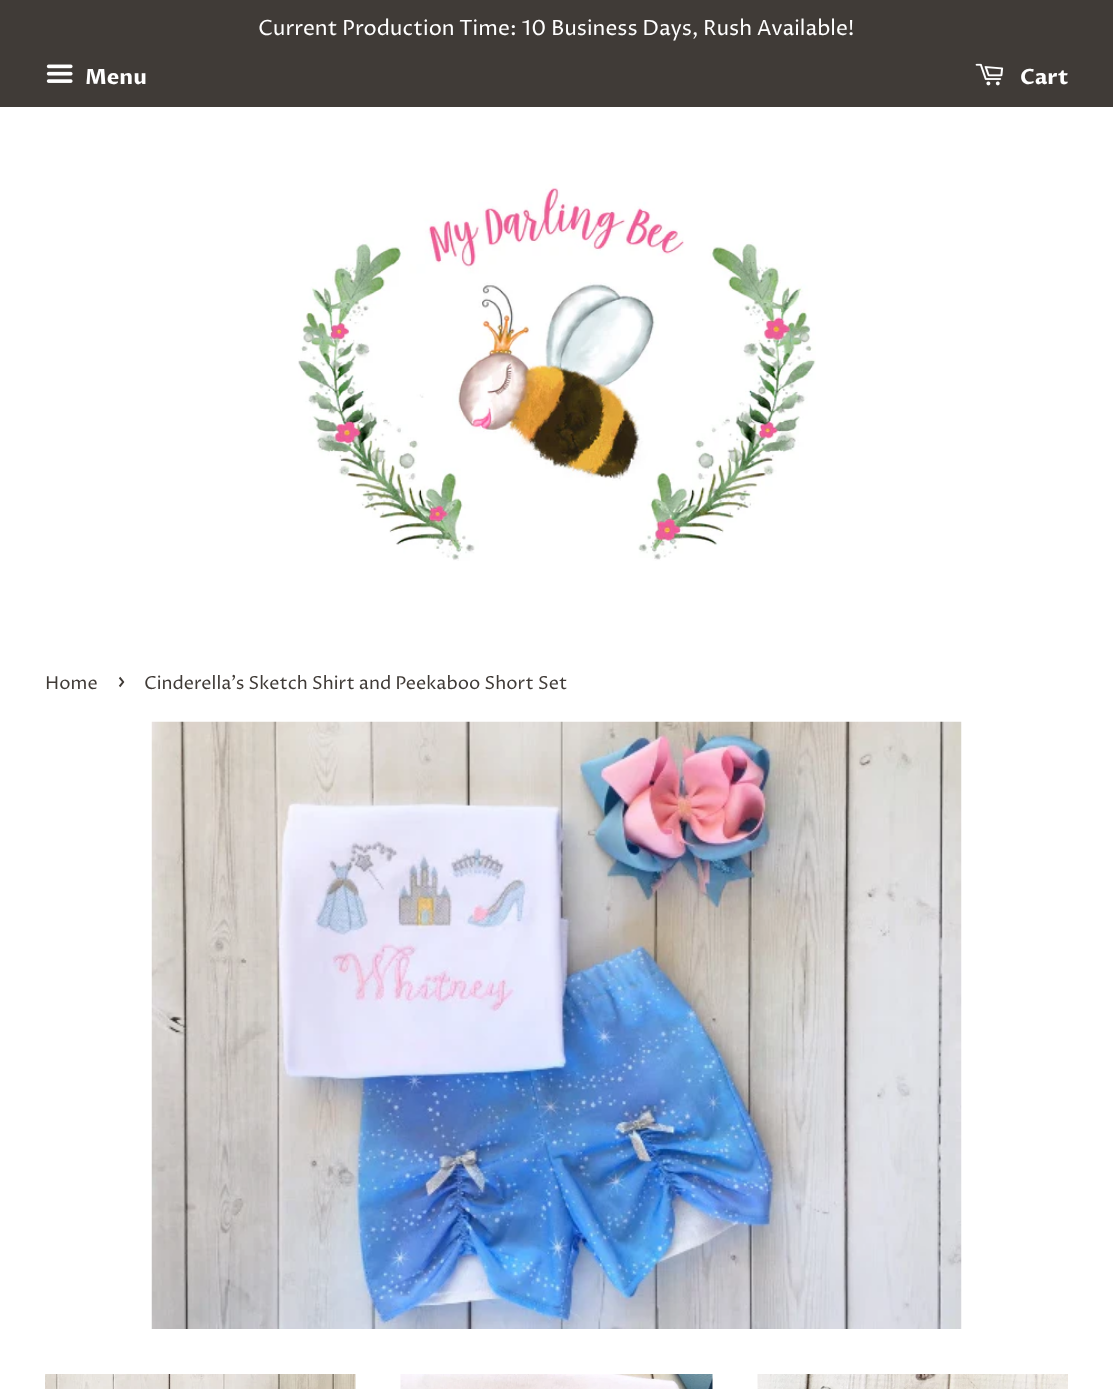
async function draw(canvas) {
  canvas.width = 1113;
  canvas.height = 1389;
  const ctx = canvas.getContext('2d');
  ctx.miterLimit = 4;
  ctx.fontKerning = 'normal';
  function label(s, x, y, font, color) {
    ctx.font = font;
    ctx.fillStyle = color;
    ctx.fillText(s, x, y);
  }
  function rect(x, y, w, h, color) {
    ctx.fillStyle = color;
    ctx.fillRect(x, y, w, h);
  }
  async function image(src, x, y, w, h) {
    const img = new Image();
    img.src = src;
    await img.decode();
    ctx.drawImage(img, x, y, w, h);
  }

  rect(0, 0, 1113, 1389, '#fff');
  rect(0, 0, 1113, 107, '#403b37');
  label('Current Production Time: 10 Business Days, Rush Available!', 258, 35, '21px Proza Libre', '#fff');
  await image('assets/img1.png', 46, 64, 27, 19);
  label('Menu', 85, 84, 'bold 21px Proza Libre', '#fff');
  await image('assets/img2.png', 975, 63, 29, 23);
  label('Cart', 1020, 84, 'bold 21px Proza Libre', '#fff');
  await image('assets/img3.png', 298, 184, 518, 377);
  label('Home', 45, 689, '18px Proza Libre', '#403b37');
  label('›', 117, 689, '25px Proza Libre', '#403b37');
  label('Cinderella\'s Sketch Shirt and Peekaboo Short Set', 144, 689, '18px Proza Libre', '#403b37');
  await image('assets/img4.png', 151, 721, 811, 608);
  await image('assets/img5.png', 45, 1374, 311, 15);
  await image('assets/img6.png', 400, 1374, 313, 15);
  await image('assets/img7.png', 757, 1374, 311, 15);
}

draw(document.querySelector('canvas'));
